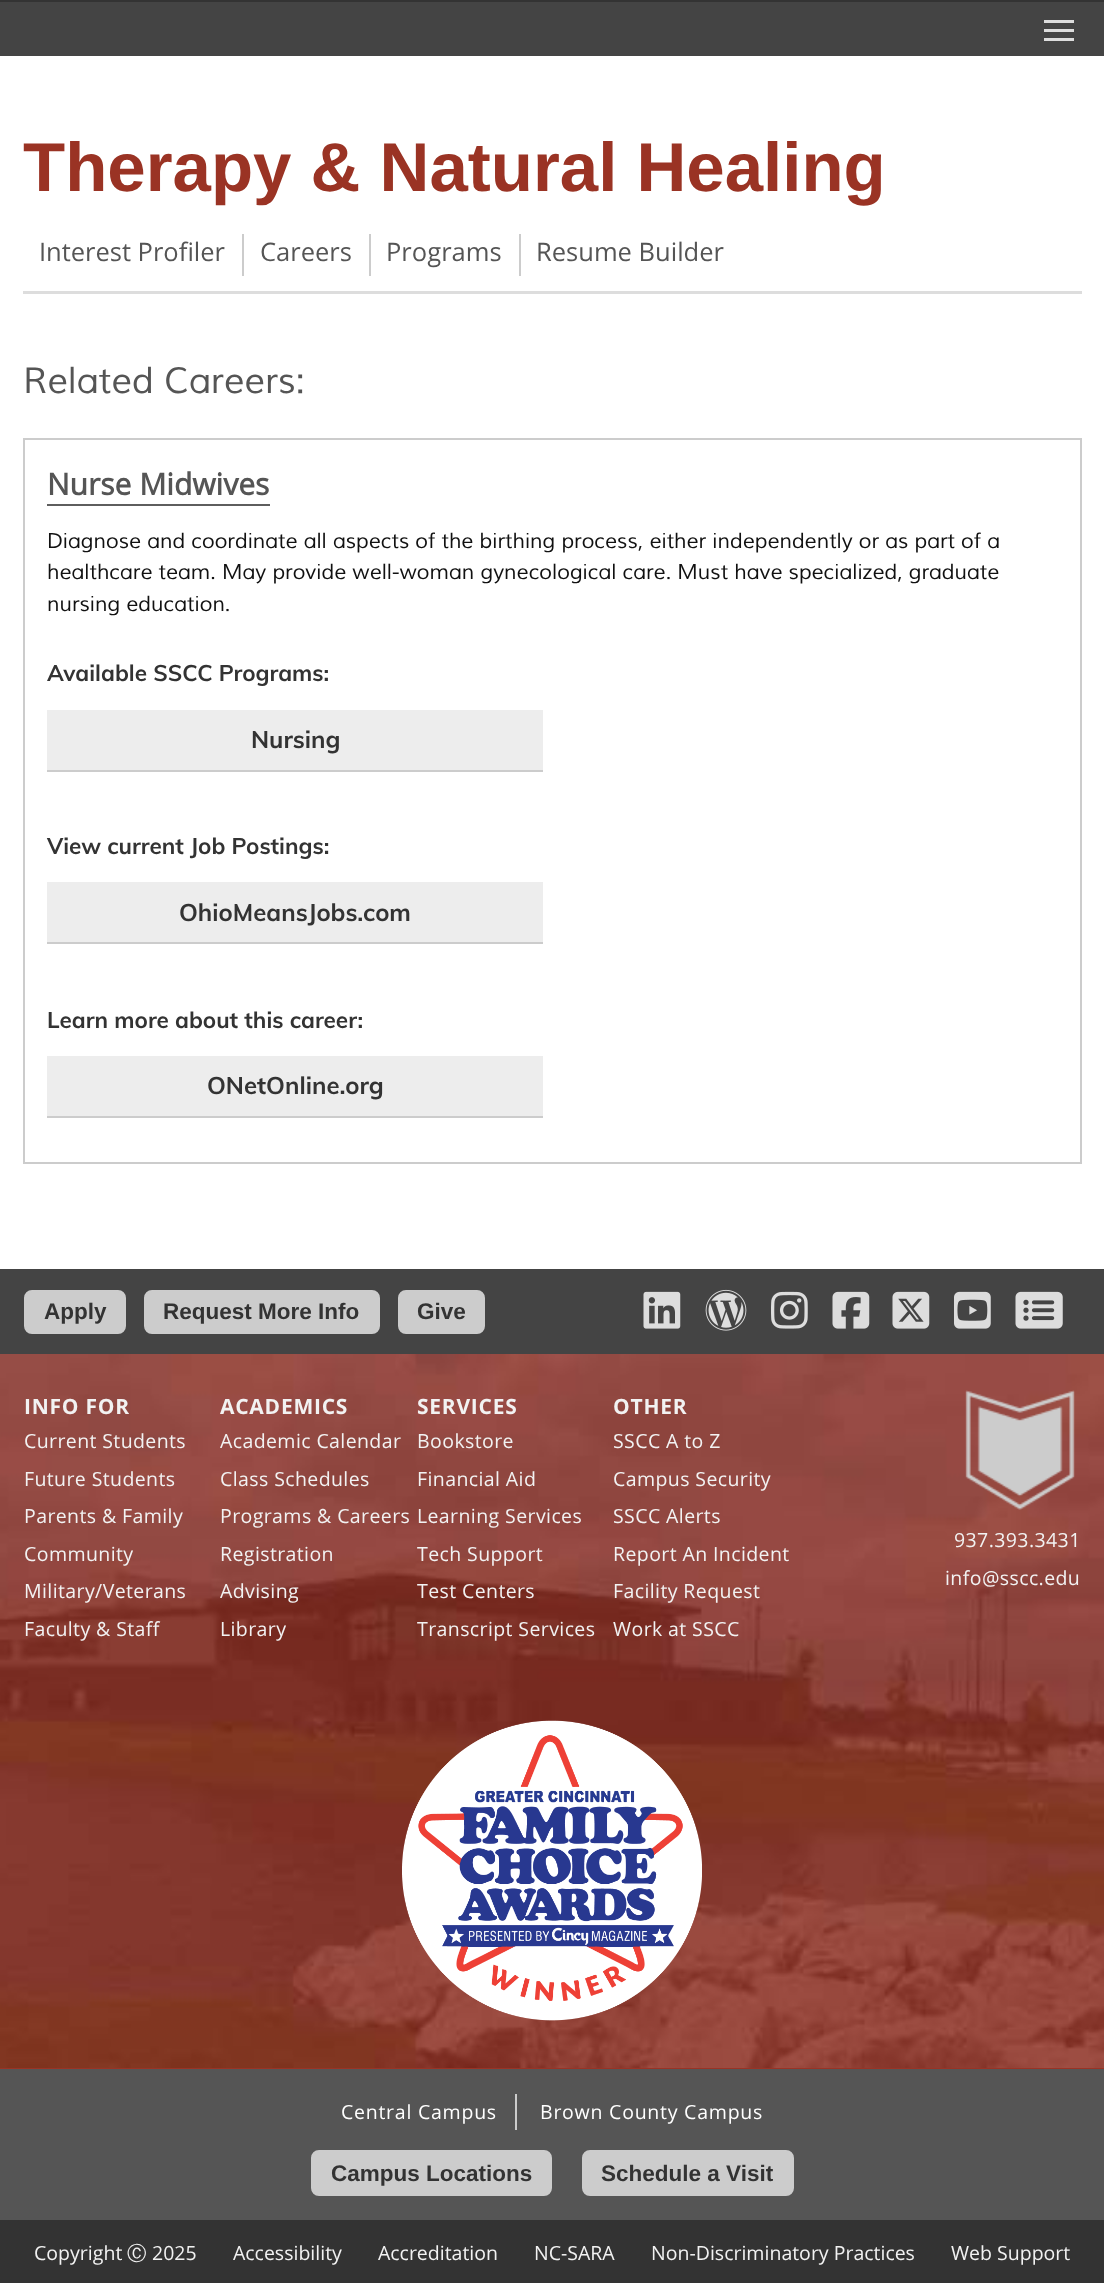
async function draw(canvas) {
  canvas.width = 1104;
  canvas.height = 2283;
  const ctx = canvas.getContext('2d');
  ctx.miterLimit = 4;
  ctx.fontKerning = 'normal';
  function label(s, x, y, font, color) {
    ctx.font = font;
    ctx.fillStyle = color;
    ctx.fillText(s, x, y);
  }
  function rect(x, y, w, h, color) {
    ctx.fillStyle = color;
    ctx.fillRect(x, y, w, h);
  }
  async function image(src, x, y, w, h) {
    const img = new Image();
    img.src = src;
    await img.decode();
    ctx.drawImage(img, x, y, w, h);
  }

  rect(0, 0, 1104, 2283, '#fff');
  rect(0, 0, 1104, 2, '#333');
  rect(0, 2, 1104, 54, '#444');
  rect(1044, 20, 30, 3, '#ddd');
  rect(1044, 29, 30, 3, '#ddd');
  rect(1044, 38, 30, 3, '#ddd');
  label('Therapy & Natural Healing', 23, 191, 'bold 69px Liberation Sans', '#9a3324');
  rect(23, 291, 1059, 3, '#ddd');
  rect(242, 234, 2, 42, '#ccc');
  label('Interest Profiler', 39, 261, '25.5px Open Sans', '#555');
  rect(369, 234, 2, 42, '#ccc');
  label('Careers', 260, 261, '25.5px Open Sans', '#555');
  rect(519, 234, 2, 42, '#ccc');
  label('Programs', 386, 261, '25.5px Open Sans', '#555');
  label('Resume Builder', 536, 261, '25.5px Open Sans', '#555');
  label('Related Careers:', 23, 393, 'italic 36px Muli', '#555');
  ctx.strokeStyle = '#ccc';
  ctx.lineWidth = 2;
  ctx.strokeRect(24, 439, 1057, 724);
  label('Nurse Midwives', 47, 495, 'bold 30px Open Sans', '#555');
  rect(47, 504, 223, 2, '#5e5e5e');
  label('Diagnose and coordinate all aspects of the birthing process, either independently or as part of a', 47, 548, 'italic 21px Muli', '#111');
  label('healthcare team. May provide well-woman gynecological care. Must have specialized, graduate', 47, 579, 'italic 21px Muli', '#111');
  label('nursing education.', 47, 611, 'italic 21px Muli', '#111');
  label('Available SSCC Programs:', 47, 681, 'bold 22.5px Muli', '#333');
  rect(47, 710, 496, 60, '#ededed');
  rect(47, 770, 496, 2, '#ccc');
  label('Nursing', 251, 748, 'bold 24px Muli', '#333');
  label('View current Job Postings:', 47, 854, 'bold 22.5px Muli', '#333');
  rect(47, 882, 496, 60, '#ededed');
  rect(47, 942, 496, 2, '#ccc');
  label('OhioMeansJobs.com', 179, 921, 'bold 24px Muli', '#333');
  label('Learn more about this career:', 47, 1028, 'bold 22.5px Muli', '#333');
  rect(47, 1056, 496, 60, '#ededed');
  rect(47, 1116, 496, 2, '#ccc');
  label('ONetOnline.org', 207, 1094, 'bold 24px Muli', '#333');
  rect(0, 1269, 1104, 85, '#444');
  ctx.fillStyle = '#ccc';
  ctx.beginPath();
  ctx.roundRect(25, 1291, 100, 42, 7);
  ctx.fill();
  ctx.stroke();
  label('Apply', 44, 1319, 'bold 22.5px Liberation Sans', '#333');
  ctx.fillStyle = '#ccc';
  ctx.beginPath();
  ctx.roundRect(145, 1291, 234, 42, 7);
  ctx.fill();
  ctx.stroke();
  label('Request More Info', 163, 1319, 'bold 22.5px Liberation Sans', '#333');
  ctx.fillStyle = '#ccc';
  ctx.beginPath();
  ctx.roundRect(399, 1291, 85, 42, 7);
  ctx.fill();
  ctx.stroke();
  label('Give', 417, 1319, 'bold 22.5px Liberation Sans', '#333');
  await image('assets/img1.png', 643, 1291, 38, 38);
  await image('assets/img2.png', 705, 1289, 42, 42);
  await image('assets/img3.png', 771, 1291, 37, 38);
  await image('assets/img4.png', 832, 1291, 38, 38);
  await image('assets/img5.png', 892, 1291, 38, 38);
  await image('assets/img6.png', 954, 1291, 37, 38);
  await image('assets/img7.png', 1015, 1291, 48, 38);
  rect(0, 2068, 1104, 1, '#9a3324');
  await image('assets/img8.png', 0, 1354, 1104, 714);
  ctx.letterSpacing = '0.75px';
  label('INFO FOR', 24, 1414, 'bold 21px "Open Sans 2"', '#f2f2f2');
  ctx.letterSpacing = '0.4px';
  label('Current Students', 24, 1448, '19.5px Open Sans', '#f2f2f2');
  label('Future Students', 24, 1486, '19.5px Open Sans', '#f2f2f2');
  label('Parents & Family', 24, 1523, '19.5px Open Sans', '#f2f2f2');
  label('Community', 24, 1561, '19.5px Open Sans', '#f2f2f2');
  label('Military/Veterans', 24, 1598, '19.5px Open Sans', '#f2f2f2');
  label('Faculty & Staff', 24, 1636, '19.5px Open Sans', '#f2f2f2');
  ctx.letterSpacing = '0.75px';
  label('ACADEMICS', 220, 1414, 'bold 21px "Open Sans 2"', '#f2f2f2');
  ctx.letterSpacing = '0.4px';
  label('Academic Calendar', 220, 1448, '19.5px Open Sans', '#f2f2f2');
  label('Class Schedules', 220, 1486, '19.5px Open Sans', '#f2f2f2');
  label('Programs & Careers', 220, 1523, '19.5px Open Sans', '#f2f2f2');
  label('Registration', 220, 1561, '19.5px Open Sans', '#f2f2f2');
  label('Advising', 220, 1598, '19.5px Open Sans', '#f2f2f2');
  label('Library', 220, 1636, '19.5px Open Sans', '#f2f2f2');
  ctx.letterSpacing = '0.75px';
  label('SERVICES', 417, 1414, 'bold 21px "Open Sans 2"', '#f2f2f2');
  ctx.letterSpacing = '0.4px';
  label('Bookstore', 417, 1448, '19.5px Open Sans', '#f2f2f2');
  label('Financial Aid', 417, 1486, '19.5px Open Sans', '#f2f2f2');
  label('Learning Services', 417, 1523, '19.5px Open Sans', '#f2f2f2');
  label('Tech Support', 417, 1561, '19.5px Open Sans', '#f2f2f2');
  label('Test Centers', 417, 1598, '19.5px Open Sans', '#f2f2f2');
  label('Transcript Services', 417, 1636, '19.5px Open Sans', '#f2f2f2');
  ctx.letterSpacing = '0.75px';
  label('OTHER', 613, 1414, 'bold 21px "Open Sans 2"', '#f2f2f2');
  ctx.letterSpacing = '0.4px';
  label('SSCC A to Z', 613, 1448, '19.5px Open Sans', '#f2f2f2');
  label('Campus Security', 613, 1486, '19.5px Open Sans', '#f2f2f2');
  label('SSCC Alerts', 613, 1523, '19.5px Open Sans', '#f2f2f2');
  label('Report An Incident', 613, 1561, '19.5px Open Sans', '#f2f2f2');
  label('Facility Request', 613, 1598, '19.5px Open Sans', '#f2f2f2');
  label('Work at SSCC', 613, 1636, '19.5px Open Sans', '#f2f2f2');
  await image('assets/img9.png', 965, 1390, 110, 120);
  label('937.393.3431', 954, 1547, '19.5px Open Sans', '#f2f2f2');
  label('info@sscc.edu', 945, 1585, '19.5px Open Sans', '#f2f2f2');
  await image('assets/img10.png', 402, 1720, 300, 301);
  rect(0, 2069, 1104, 151, '#555');
  ctx.letterSpacing = '0.75px';
  label('Central Campus', 341, 2119, '19.5px Open Sans', '#fff');
  rect(515, 2094, 2, 36, '#ccc');
  label('Brown County Campus', 540, 2119, '19.5px Open Sans', '#fff');
  ctx.fillStyle = '#ccc';
  ctx.beginPath();
  ctx.roundRect(312, 2151, 239, 44, 7);
  ctx.fill();
  ctx.stroke();
  ctx.letterSpacing = '0px';
  label('Campus Locations', 331, 2181, 'bold 22.5px Liberation Sans', '#333');
  ctx.fillStyle = '#ccc';
  ctx.beginPath();
  ctx.roundRect(583, 2151, 210, 44, 7);
  ctx.fill();
  ctx.stroke();
  label('Schedule a Visit', 601, 2181, 'bold 22.5px Liberation Sans', '#333');
  rect(0, 2220, 1104, 63, '#333');
  label('Copyright', 34, 2260, '19.5px Open Sans', '#f2f2f2');
  label('Ⓒ', 127, 2260, '500 19.5px WenQuanYi Zen Hei', '#f2f2f2');
  label('2025', 152, 2260, '19.5px Open Sans', '#f2f2f2');
  label('Accessibility', 233, 2260, '19.5px Open Sans', '#f2f2f2');
  label('Accreditation', 378, 2260, '19.5px Open Sans', '#f2f2f2');
  label('NC-SARA', 534, 2260, '19.5px Open Sans', '#f2f2f2');
  label('Non‑Discriminatory Practices', 651, 2260, '19.5px Open Sans', '#f2f2f2');
  label('Web Support', 951, 2260, '19.5px Open Sans', '#f2f2f2');
}

draw(document.querySelector('canvas'));
